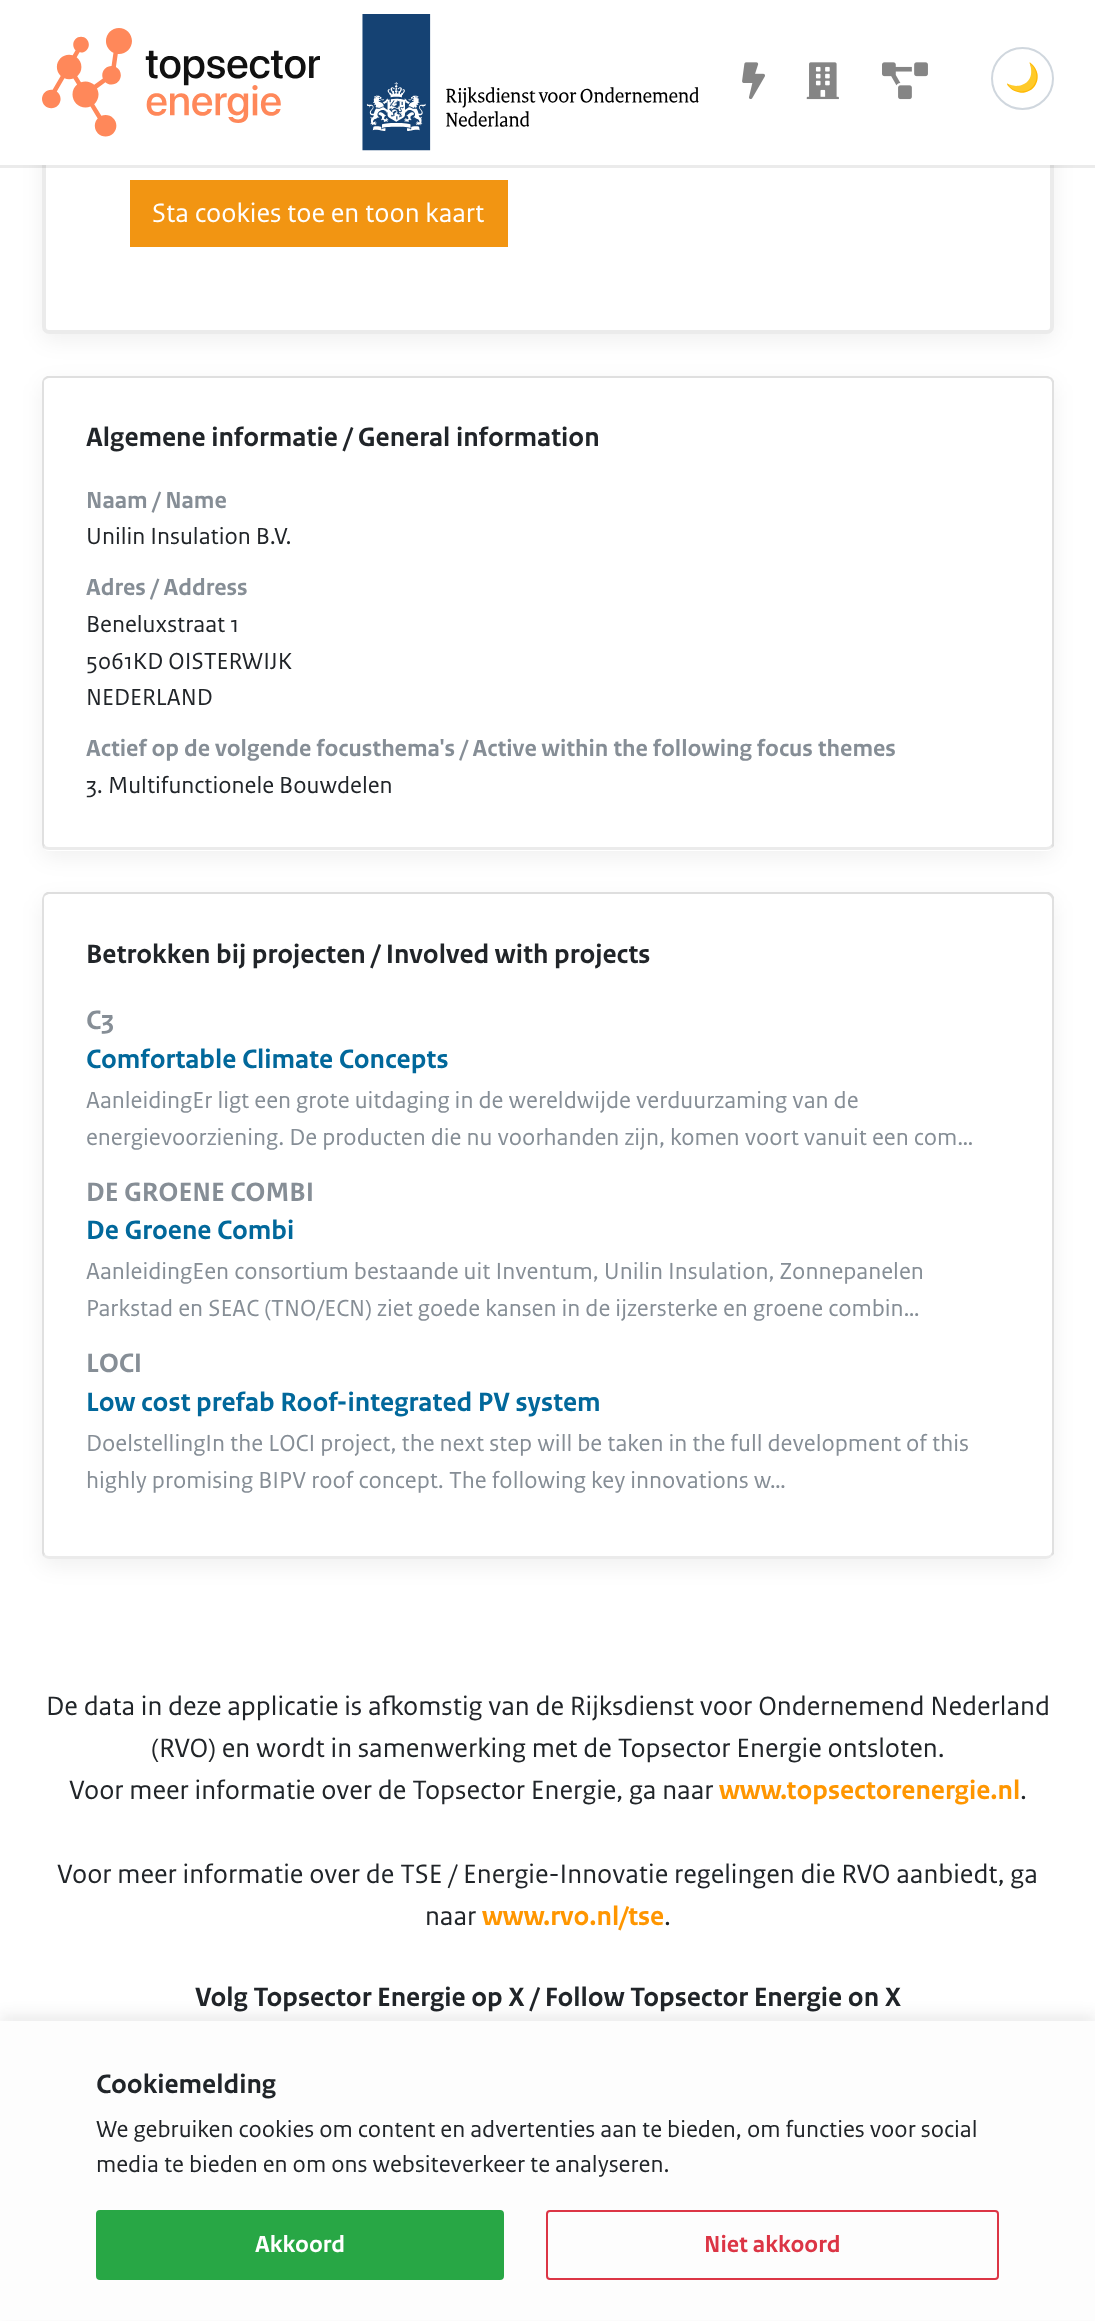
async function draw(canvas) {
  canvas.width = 1095;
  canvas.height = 2321;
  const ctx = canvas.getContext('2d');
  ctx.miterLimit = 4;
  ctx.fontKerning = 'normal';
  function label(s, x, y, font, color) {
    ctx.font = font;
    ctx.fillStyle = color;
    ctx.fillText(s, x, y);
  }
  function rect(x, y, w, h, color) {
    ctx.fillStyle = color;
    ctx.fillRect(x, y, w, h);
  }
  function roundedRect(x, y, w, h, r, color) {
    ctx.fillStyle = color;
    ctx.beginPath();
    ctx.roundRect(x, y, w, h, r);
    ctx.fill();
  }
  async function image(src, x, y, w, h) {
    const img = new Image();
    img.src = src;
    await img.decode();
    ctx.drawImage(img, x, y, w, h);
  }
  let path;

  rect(0, 0, 1095, 2321, '#fff');
  ctx.save();
  path = new Path2D('M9 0H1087V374H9ZM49-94H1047C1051-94 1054-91 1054-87V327C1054 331 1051 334 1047 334H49C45 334 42 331 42 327V-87C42-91 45-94 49-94Z');
  ctx.clip(path, 'evenodd');
  ctx.fillStyle = '#0000000f';
  ctx.filter = 'blur(10.5px)';
  ctx.beginPath();
  ctx.roundRect(42, -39, 1012, 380, 7);
  ctx.fill();
  ctx.filter = 'none';
  ctx.restore();
  ctx.beginPath();
  ctx.roundRect(44, -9, 1008, 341, 5);
  ctx.strokeStyle = '#00000014';
  ctx.lineWidth = 4;
  ctx.stroke();
  ctx.fillStyle = '#00000014';
  path = new Path2D('M0 164V168H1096V4V164Z');
  ctx.fill(path);
  rect(0, 0, 1095, 165, '#fff');
  await image('assets/img1.png', 42, 28, 278, 109);
  await image('assets/img2.png', 362, 14, 337, 137);
  await image('assets/img3.png', 742, 62, 23, 37);
  await image('assets/img4.png', 806, 62, 33, 38);
  await image('assets/img5.png', 882, 62, 46, 38);
  ctx.beginPath();
  ctx.arc(1022.5, 78.5, 30.5, 0, 2 * Math.PI);
  ctx.strokeStyle = '#d0d7de';
  ctx.lineWidth = 2;
  ctx.stroke();
  label('🌙', 1005, 87, '28px Noto Color Emoji', '#24292f');
  rect(130, 180, 378, 67, '#f29512');
  label('Sta cookies toe en toon kaart', 152, 222, '28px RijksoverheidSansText', '#fff');
  ctx.fillStyle = '#0000000f';
  ctx.filter = 'blur(10.5px)';
  ctx.beginPath();
  ctx.roundRect(42, 383, 1012, 475, 7);
  ctx.fill();
  ctx.filter = 'none';
  roundedRect(42, 376, 1012, 475, 7, '#fff');
  ctx.fillStyle = '#dfdfdf';
  path = new Path2D('M49 378C47 378 46 379 45 380L44 378L47 376H1048L1052 378L1050 379C1049 379 1048 378 1046 378Z');
  ctx.fill(path);
  ctx.fillStyle = '#0000001f';
  path = new Path2D('M1054 846L1052 848L1051 845L1052 844V383C1052 382 1051 380 1050 379L1052 378L1054 381Z');
  ctx.fill(path);
  ctx.fillStyle = '#00000014';
  path = new Path2D('M1052 848C1051 849 1048 850 1046 850H49C47 850 45 849 43 848L45 845C45 846 47 847 49 847H1046C1048 847 1050 846 1051 845Z');
  ctx.fill(path);
  ctx.fillStyle = '#0000001f';
  path = new Path2D('M42 383V844C42 845 43 847 43 848L45 845L44 844V383C44 382 44 380 45 380L44 378C43 379 42 381 42 383Z');
  ctx.fill(path);
  label('Algemene informatie / General information', 86, 446, 'bold 28px RijksoverheidSansText', '#212529');
  label('Naam / Name', 86, 508, 'bold 24.5px RijksoverheidSansText', '#868e96');
  label('Unilin Insulation B.V.', 86, 544, '24.5px RijksoverheidSansText', '#212529');
  label('Adres / Address', 86, 595, 'bold 24.5px RijksoverheidSansText', '#868e96');
  label('Beneluxstraat 1', 86, 632, '24.5px RijksoverheidSansText', '#212529');
  label('5061KD OISTERWIJK', 86, 669, '24.5px RijksoverheidSansText', '#212529');
  label('NEDERLAND', 86, 705, '24.5px RijksoverheidSansText', '#212529');
  label('Actief op de volgende focusthema\'s / Active within the following focus themes', 86, 756, 'bold 24.5px RijksoverheidSansText', '#868e96');
  label('3. Multifunctionele Bouwdelen', 86, 793, '24.5px RijksoverheidSansText', '#212529');
  ctx.fillStyle = '#0000000f';
  ctx.filter = 'blur(10.5px)';
  ctx.beginPath();
  ctx.roundRect(42, 900, 1012, 666, 7);
  ctx.fill();
  ctx.filter = 'none';
  roundedRect(42, 893, 1012, 666, 7, '#fff');
  ctx.fillStyle = '#dedede';
  path = new Path2D('M49 894C48 894 46 895 45 896L44 894L47 892H1049L1052 894L1050 896C1049 895 1048 894 1046 894Z');
  ctx.fill(path);
  ctx.fillStyle = '#0000001f';
  path = new Path2D('M1054 1554L1052 1556L1051 1554L1052 1552V900C1052 898 1051 897 1050 896L1052 894L1054 897Z');
  ctx.fill(path);
  ctx.fillStyle = '#00000014';
  path = new Path2D('M1052 1556C1051 1558 1048 1559 1046 1559H49C47 1559 45 1558 43 1556L45 1554C45 1555 47 1556 49 1556H1046C1048 1556 1050 1555 1051 1554Z');
  ctx.fill(path);
  ctx.fillStyle = '#0000001f';
  path = new Path2D('M42 900V1553L43 1556L45 1554L44 1552V900C44 898 44 897 45 896L44 894C43 896 42 898 42 900Z');
  ctx.fill(path);
  label('Betrokken bij projecten / Involved with projects', 86, 963, 'bold 28px RijksoverheidSansText', '#212529');
  label('C3', 86, 1029, 'bold 28px RijksoverheidSansText', '#868e96');
  label('Comfortable Climate Concepts', 86, 1068, 'bold 28px RijksoverheidSansText', '#01689b');
  label('AanleidingEr ligt een grote uitdaging in de wereldwijde verduurzaming van de', 86, 1108, '24.5px RijksoverheidSansText', '#868e96');
  label('energievoorziening. De producten die nu voorhanden zijn, komen voort vanuit een com…', 86, 1145, '24.5px RijksoverheidSansText', '#868e96');
  label('DE GROENE COMBI', 86, 1201, 'bold 28px RijksoverheidSansText', '#868e96');
  label('De Groene Combi', 86, 1239, 'bold 28px RijksoverheidSansText', '#01689b');
  label('AanleidingEen consortium bestaande uit Inventum, Unilin Insulation, Zonnepanelen', 86, 1279, '24.5px RijksoverheidSansText', '#868e96');
  label('Parkstad en SEAC (TNO/ECN) ziet goede kansen in de ijzersterke en groene combin…', 86, 1316, '24.5px RijksoverheidSansText', '#868e96');
  label('LOCI', 86, 1372, 'bold 28px RijksoverheidSansText', '#868e96');
  label('Low cost prefab Roof-integrated PV system', 86, 1411, 'bold 28px RijksoverheidSansText', '#01689b');
  label('DoelstellingIn the LOCI project, the next step will be taken in the full development of this', 86, 1451, '24.5px RijksoverheidSansText', '#868e96');
  label('highly promising BIPV roof concept. The following key innovations w…', 86, 1488, '24.5px RijksoverheidSansText', '#868e96');
  label('De data in deze applicatie is afkomstig van de Rijksdienst voor Ondernemend Nederland', 46, 1715, '28px RijksoverheidSansText', '#212529');
  label('(RVO) en wordt in samenwerking met de Topsector Energie ontsloten.', 151, 1757, '28px RijksoverheidSansText', '#212529');
  label('Voor meer informatie over de Topsector Energie, ga naar', 69, 1799, '28px RijksoverheidSansText', '#212529');
  label('www.topsectorenergie.nl', 719, 1799, 'bold 28px RijksoverheidSansText', '#ff9600');
  label('.', 1020, 1799, '28px RijksoverheidSansText', '#212529');
  label('Voor meer informatie over de TSE / Energie-Innovatie regelingen die RVO aanbiedt, ga', 57, 1883, '28px RijksoverheidSansText', '#212529');
  label('naar', 425, 1925, '28px RijksoverheidSansText', '#212529');
  label('www.rvo.nl/tse', 482, 1925, 'bold 28px RijksoverheidSansText', '#ff9600');
  label('.', 664, 1925, '28px RijksoverheidSansText', '#212529');
  label('Volg Topsector Energie op X / Follow Topsector Energie on X', 195, 2006, 'bold 28px RijksoverheidSansText', '#212529');
  ctx.fillStyle = '#1f1f1f14';
  ctx.filter = 'blur(7px)';
  ctx.beginPath();
  ctx.rect(0, 2014, 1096, 301);
  ctx.fill();
  ctx.filter = 'none';
  rect(0, 2021, 1095, 299, '#fdfdfd');
  label('Cookiemelding', 96, 2093, 'bold 28px RijksoverheidSansText', '#212529');
  label('We gebruiken cookies om content en advertenties aan te bieden, om functies voor social', 96, 2137, '24.5px RijksoverheidSansText', '#212529');
  label('media te bieden en om ons websiteverkeer te analyseren.', 96, 2172, '24.5px RijksoverheidSansText', '#212529');
  ctx.fillStyle = '#28a745';
  ctx.beginPath();
  ctx.roundRect(97, 2211, 406, 68, 3);
  ctx.fill();
  ctx.strokeStyle = '#28a745';
  ctx.stroke();
  label('Akkoord', 255, 2252, 'bold 24.5px RijksoverheidSansText', '#fff');
  ctx.beginPath();
  ctx.roundRect(547, 2211, 451, 68, 3);
  ctx.strokeStyle = '#dc3545';
  ctx.stroke();
  label('Niet akkoord', 704, 2252, 'bold 24.5px RijksoverheidSansText', '#dc3545');
}

draw(document.querySelector('canvas'));
